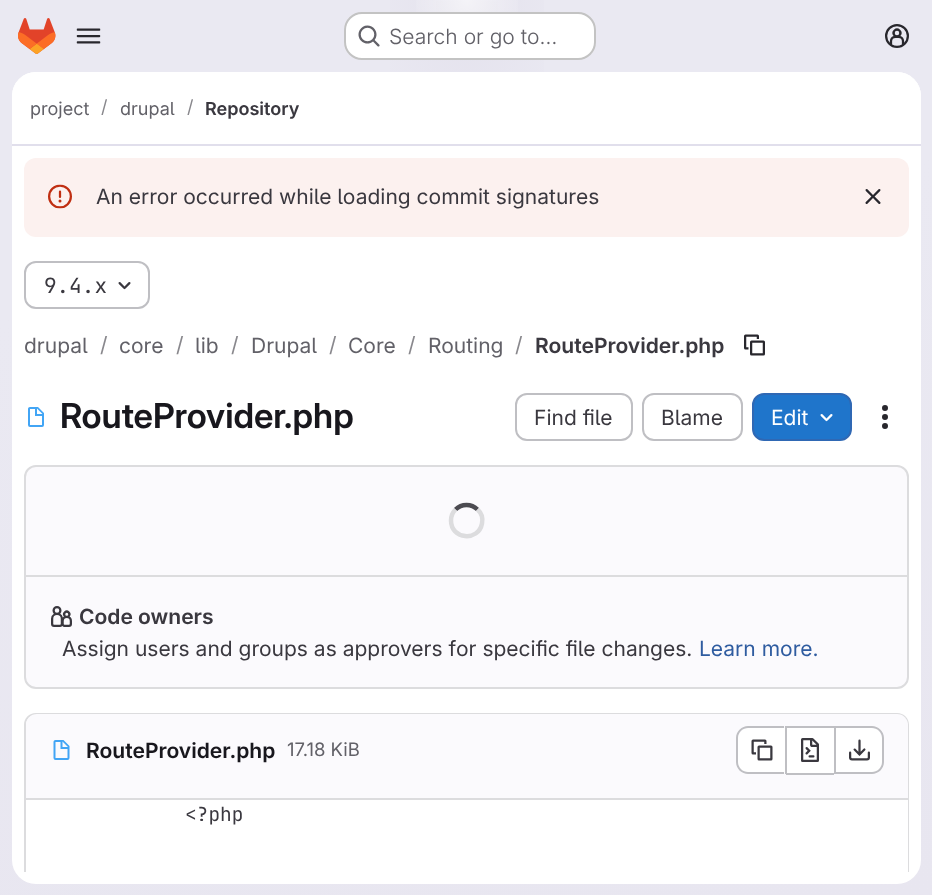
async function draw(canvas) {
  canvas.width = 932;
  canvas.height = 895;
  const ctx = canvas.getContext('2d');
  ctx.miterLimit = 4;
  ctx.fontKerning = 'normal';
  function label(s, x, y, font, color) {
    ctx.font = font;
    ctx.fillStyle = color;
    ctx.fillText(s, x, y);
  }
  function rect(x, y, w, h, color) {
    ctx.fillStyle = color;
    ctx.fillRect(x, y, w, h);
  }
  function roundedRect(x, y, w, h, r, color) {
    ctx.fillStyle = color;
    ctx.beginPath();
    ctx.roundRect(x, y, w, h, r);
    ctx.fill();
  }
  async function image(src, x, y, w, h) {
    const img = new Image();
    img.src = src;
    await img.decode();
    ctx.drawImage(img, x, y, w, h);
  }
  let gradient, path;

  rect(0, 0, 932, 895, '#fff');
  gradient = ctx.createLinearGradient(557, 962, 376, -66);
  gradient.addColorStop(0, '#e8e6f0');
  gradient.addColorStop(0.7, '#eae9f2');
  ctx.fillStyle = gradient;
  ctx.fillRect(0, 0, 932, 895);
  gradient = ctx.createRadialGradient(467, 0, 0, 467, 0, 467);
  gradient.addColorStop(0, '#e4e2ed');
  gradient.addColorStop(0.23, '#e4e2ed00');
  ctx.fillStyle = gradient;
  ctx.beginPath();
  ctx.rect(390, 0, 154, 72);
  ctx.save();
  ctx.clip();
  ctx.scale(1, 896 / 467);
  ctx.fillRect(0, 0, 932, 467);
  ctx.restore();
  gradient = ctx.createRadialGradient(467, 0, 0, 467, 0, 467);
  gradient.addColorStop(0, '#e4e2ec');
  gradient.addColorStop(0.16, '#e4e2ec00');
  ctx.fillStyle = gradient;
  ctx.beginPath();
  ctx.rect(436, 1, 62, 58);
  ctx.save();
  ctx.clip();
  ctx.scale(1, 896 / 467);
  ctx.fillRect(0, 0, 932, 467);
  ctx.restore();
  gradient = ctx.createRadialGradient(467, 0, 0, 467, 0, 1010);
  gradient.addColorStop(0, '#ffffff99');
  gradient.addColorStop(0.06, '#ffffff00');
  ctx.fillStyle = gradient;
  ctx.fillRect(416, 0, 102, 12);
  await image('assets/img1.png', 18, 18, 38, 36);
  await image('assets/img2.png', 76, 28, 25, 16);
  roundedRect(344, 12, 252, 48, 18, '#fff');
  ctx.beginPath();
  ctx.roundRect(345, 13, 250, 46, 17);
  ctx.strokeStyle = '#0505063d';
  ctx.lineWidth = 2;
  ctx.stroke();
  await image('assets/img3.png', 358, 25, 22, 22);
  label('Search or go to…', 389, 44, '300 21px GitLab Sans', '#626168');
  await image('assets/img4.png', 885, 24, 24, 24);
  roundedRect(12, 72, 909, 812, 24, '#fff');
  ctx.beginPath();
  ctx.roundRect(12, 72, 909, 74, [24, 24, 0, 0]);
  ctx.fill();
  rect(12, 144, 909, 2, '#e1dfec');
  label('project', 30, 115, '18px GitLab Sans', '#626168');
  label('/', 101, 113, '18px GitLab Sans', '#89888d');
  label('drupal', 120, 115, '18px GitLab Sans', '#626168');
  label('/', 187, 113, '18px GitLab Sans', '#89888d');
  label('Repository', 205, 115, '600 18px GitLab Sans', '#3a383f');
  roundedRect(24, 158, 885, 79, 12, '#fcf1ef');
  await image('assets/img5.png', 48, 184, 24, 25);
  label('An error occurred while loading commit signatures', 96, 204, '21px GitLab Sans', '#3a383f');
  await image('assets/img6.png', 865, 189, 16, 15);
  ctx.beginPath();
  ctx.roundRect(25, 262, 124, 46, 11);
  ctx.strokeStyle = '#bfbfc3';
  ctx.stroke();
  label('9.4.x', 44, 293, '21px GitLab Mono', '#3a383f');
  await image('assets/img7.png', 118, 282, 13, 8);
  label('drupal', 24, 353, '21px GitLab Sans', '#626168');
  label('/', 100, 352, '21px GitLab Sans', '#89888d');
  label('core', 119, 353, '21px GitLab Sans', '#626168');
  label('/', 176, 352, '21px GitLab Sans', '#89888d');
  label('lib', 195, 353, '21px GitLab Sans', '#626168');
  label('/', 231, 352, '21px GitLab Sans', '#89888d');
  label('Drupal', 251, 353, '21px GitLab Sans', '#626168');
  label('/', 329, 352, '21px GitLab Sans', '#89888d');
  label('Core', 348, 353, '21px GitLab Sans', '#626168');
  label('/', 408, 352, '21px GitLab Sans', '#89888d');
  label('Routing', 428, 353, '21px GitLab Sans', '#626168');
  label('/', 515, 352, '21px GitLab Sans', '#89888d');
  label('RouteProvider.php', 535, 353, '600 21px GitLab Sans', '#3a383f');
  await image('assets/img8.png', 744, 334, 21, 22);
  await image('assets/img9.png', 28, 407, 16, 20);
  label('RouteProvider.php', 60, 428, '600 34.5px "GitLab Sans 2"', '#18171d');
  ctx.beginPath();
  ctx.roundRect(516, 394, 116, 46, 11);
  ctx.stroke();
  label('Find file', 534, 425, '21px GitLab Sans', '#3a383f');
  ctx.beginPath();
  ctx.roundRect(643, 394, 99, 46, 11);
  ctx.stroke();
  label('Blame', 661, 425, '21px GitLab Sans', '#3a383f');
  ctx.fillStyle = '#1f75cb';
  ctx.beginPath();
  ctx.roundRect(753, 394, 98, 46, 11);
  ctx.fill();
  ctx.strokeStyle = '#2f68b4';
  ctx.stroke();
  label('Edit', 771, 425, '21px GitLab Sans', '#fff');
  await image('assets/img10.png', 820, 414, 13, 8);
  await image('assets/img11.png', 882, 405, 6, 24);
  ctx.fillStyle = '#fbfafd';
  ctx.beginPath();
  ctx.roundRect(25, 466, 883, 222, 11);
  ctx.fill();
  ctx.strokeStyle = '#dcdcde';
  ctx.stroke();
  path = new Path2D('M455.5 509.5C461.5 503.5 471.5 503.5 477.5 509.5');
  ctx.strokeStyle = '#4c4b51';
  ctx.lineWidth = 4.5;
  ctx.stroke(path);
  path = new Path2D('M477.5 509.5C481.5 513 483 518.5 482 523.5C478.5 542 451 539.5 451 520.5C451 516.5 452.5 512.5 455.5 509.5');
  ctx.strokeStyle = '#dcdcde';
  ctx.stroke(path);
  rect(26, 575, 882, 2, '#dcdcde');
  await image('assets/img12.png', 51, 606, 21, 21);
  label('Code owners', 79, 624, '600 21px GitLab Sans', '#3a383f');
  label('Assign users and groups as approvers for specific file changes.', 62, 656, '21px GitLab Sans', '#3a383f');
  label('Learn more.', 699, 656, '21px GitLab Sans', '#2f5ca0');
  ctx.save();
  ctx.beginPath();
  ctx.rect(12, 146, 909, 726);
  ctx.clip();
  ctx.fillStyle = '#dcdcde';
  path = new Path2D('M36 713C29 713 24 718 24 725V881L26 882V725C26 719 30 715 36 715H897C903 715 907 719 907 725V882L909 881V725C909 718 904 713 897 713Z');
  ctx.fill(path);
  ctx.restore();
  ctx.fillStyle = '#fbfafd';
  ctx.beginPath();
  ctx.roundRect(26, 714, 882, 86, [11, 11, 0, 0]);
  ctx.fill();
  rect(26, 798, 882, 2, '#dcdcde');
  await image('assets/img13.png', 53, 740, 17, 20);
  label('RouteProvider.php', 86, 758, '600 21px GitLab Sans', '#18171d');
  label('17.18 KiB', 287, 756, '18.5px GitLab Sans', '#626168');
  ctx.fillStyle = '#fff';
  ctx.beginPath();
  ctx.roundRect(738, 728, 47, 45, [11, 0, 0, 11]);
  ctx.fill();
  ctx.fillStyle = '#bfbfc3';
  path = new Path2D('M748 726H784V774H748C742 774 736 769 736 762V738C736 731 742 726 748 726ZM748 728H784V772H748C743 772 738 768 738 762V738C738 732 743 728 748 728Z');
  ctx.fill(path, 'evenodd');
  await image('assets/img14.png', 751, 739, 22, 22);
  rect(787, 728, 47, 45, '#fff');
  rect(786, 726, 48, 2, '#bfbfc3');
  rect(786, 773, 48, 2, '#bfbfc3');
  rect(785, 726, 2, 48, '#bfbfc3');
  await image('assets/img15.png', 801, 738, 18, 24);
  ctx.fillStyle = '#fff';
  ctx.beginPath();
  ctx.roundRect(836, 728, 46, 45, [0, 11, 11, 0]);
  ctx.fill();
  ctx.fillStyle = '#bfbfc3';
  path = new Path2D('M836 726H872C878 726 884 731 884 738V762C884 769 878 774 872 774H836ZM836 728H872C877 728 882 732 882 738V762C882 768 877 772 872 772H836Z');
  ctx.fill(path, 'evenodd');
  rect(834, 726, 2, 48, '#bfbfc3');
  await image('assets/img16.png', 849, 739, 21, 22);
  rect(907, 800, 1, 72, '#fff');
  label('<?php', 185, 821, '19.5px GitLab Mono', '#3a383f');
}

draw(document.querySelector('canvas'));
